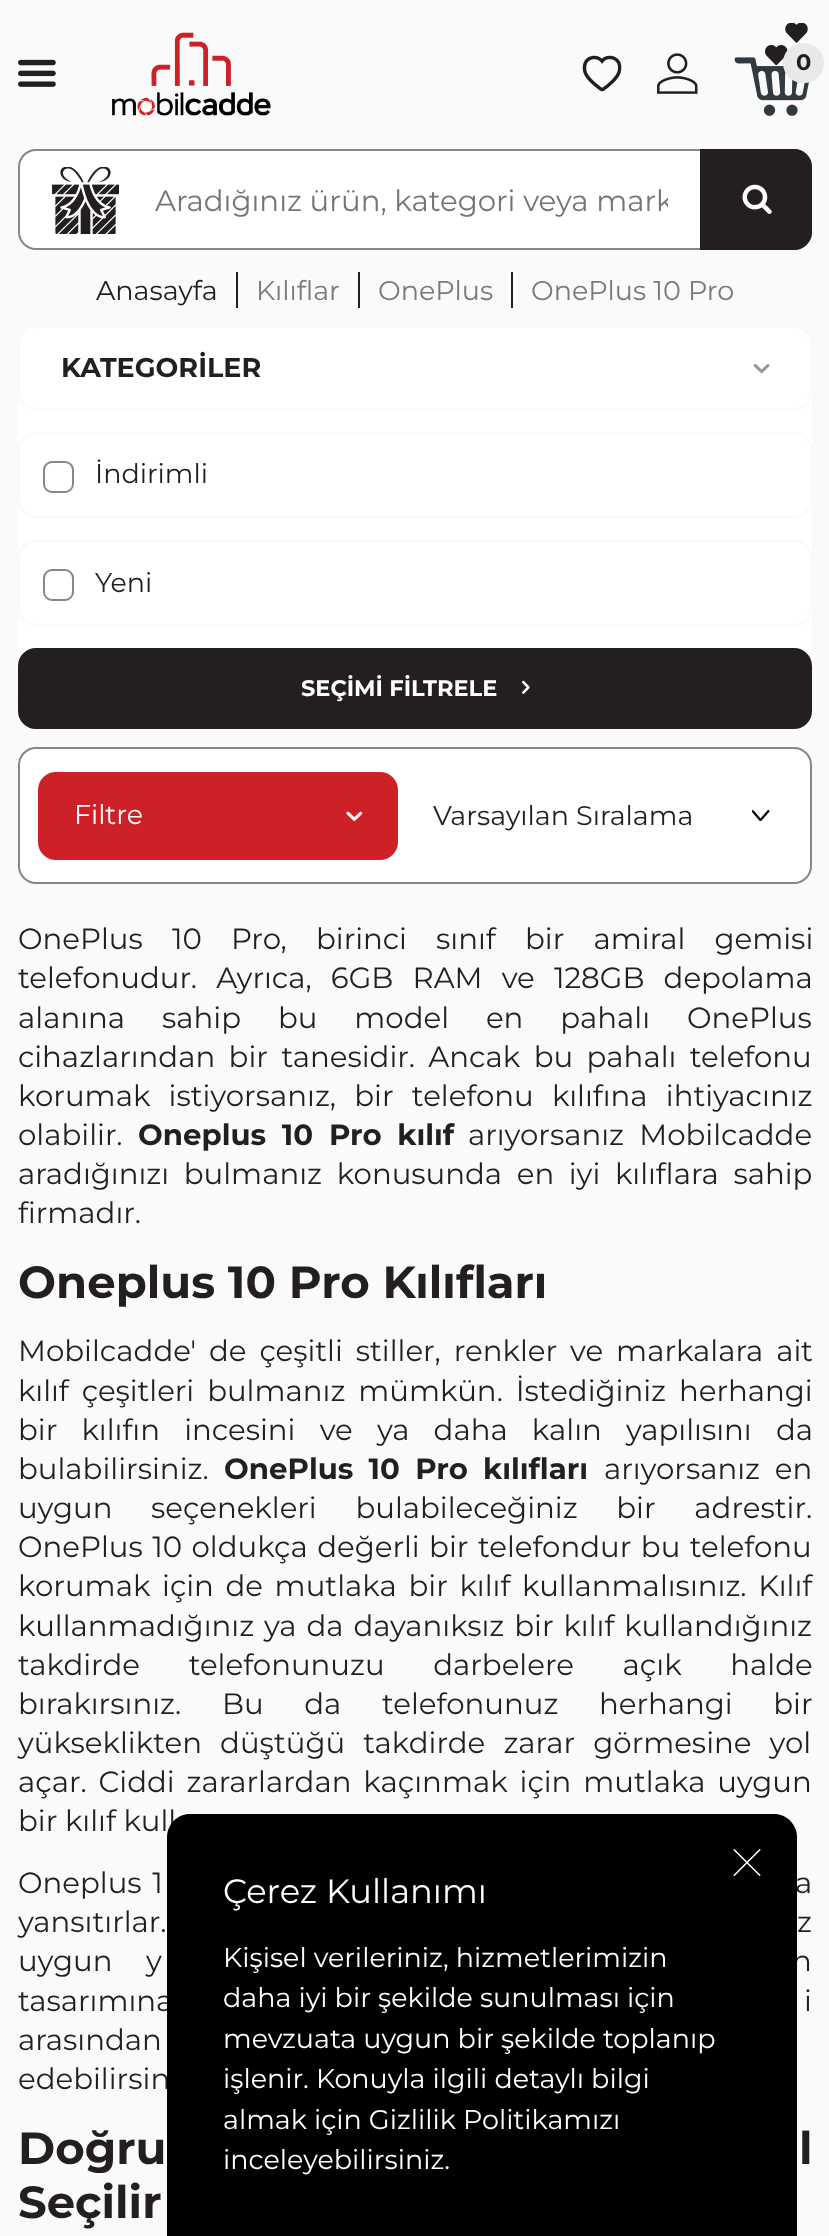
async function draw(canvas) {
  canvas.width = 829;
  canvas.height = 2236;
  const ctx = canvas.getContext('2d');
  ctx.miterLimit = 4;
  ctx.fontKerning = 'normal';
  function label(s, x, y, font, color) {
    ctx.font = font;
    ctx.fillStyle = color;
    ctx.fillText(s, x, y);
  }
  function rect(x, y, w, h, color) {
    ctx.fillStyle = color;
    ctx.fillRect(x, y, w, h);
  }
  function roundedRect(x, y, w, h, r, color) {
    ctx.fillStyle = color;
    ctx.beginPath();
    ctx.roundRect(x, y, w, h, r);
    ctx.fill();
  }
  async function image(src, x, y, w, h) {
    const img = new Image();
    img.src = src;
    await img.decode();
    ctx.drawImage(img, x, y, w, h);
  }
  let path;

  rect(0, 0, 829, 2236, '#fafafa');
  await image('assets/img1.png', 18, 59, 38, 28);
  await image('assets/img2.png', 112, 32, 159, 84);
  await image('assets/img3.png', 582, 55, 40, 37);
  await image('assets/img4.png', 657, 53, 41, 41);
  await image('assets/img5.png', 734, 23, 75, 93);
  roundedRect(783, 43, 41, 40, 20, '#e9e9e9');
  label('0', 796, 70, 'bold 22.5px Montserrat', '#231f20');
  ctx.fillStyle = '#fff';
  ctx.beginPath();
  ctx.roundRect(19, 150, 792, 99, 17);
  ctx.fill();
  ctx.strokeStyle = '#878787';
  ctx.lineWidth = 2;
  ctx.stroke();
  await image('assets/img6.png', 52, 167, 67, 67);
  ctx.save();
  ctx.beginPath();
  ctx.rect(155, 182, 513, 36);
  ctx.clip();
  label('Aradığınız ürün, kategori veya mark', 155, 211, '29.25px Montserrat', '#757575');
  ctx.restore();
  ctx.fillStyle = '#231f20';
  ctx.beginPath();
  ctx.roundRect(701, 150, 110, 99, [0, 17, 17, 0]);
  ctx.fill();
  ctx.strokeStyle = '#231f20';
  ctx.stroke();
  await image('assets/img7.png', 742, 184, 30, 30);
  rect(236, 272, 2, 36, '#231f20');
  label('Anasayfa', 96, 300, '27px Montserrat', '#231f20');
  rect(358, 272, 2, 36, '#231f20');
  label('Kılıflar', 256, 300, '27px Montserrat', '#7b7979');
  rect(511, 272, 2, 36, '#231f20');
  label('OnePlus', 378, 300, '27px Montserrat', '#7b7979');
  label('OnePlus 10 Pro', 531, 300, '27px Montserrat', '#7b7979');
  roundedRect(18, 326, 794, 403, 18, '#fff');
  ctx.beginPath();
  ctx.roundRect(19, 327, 792, 82, 17);
  ctx.strokeStyle = '#f9f9f9';
  ctx.stroke();
  label('KATEGORİLER', 61, 377, 'bold 27px Montserrat', '#231f20');
  await image('assets/img8.png', 753, 363, 17, 11);
  ctx.beginPath();
  ctx.roundRect(19, 433, 792, 84, 17);
  ctx.stroke();
  ctx.beginPath();
  ctx.roundRect(44, 462, 29, 30, 8);
  ctx.strokeStyle = '#878787';
  ctx.stroke();
  label('İndirimli', 95, 483, '27px Montserrat', '#231f20');
  ctx.beginPath();
  ctx.roundRect(19, 541, 792, 84, 17);
  ctx.strokeStyle = '#f9f9f9';
  ctx.stroke();
  ctx.beginPath();
  ctx.roundRect(44, 570, 29, 30, 8);
  ctx.strokeStyle = '#878787';
  ctx.stroke();
  label('Yeni', 95, 592, '27px Montserrat', '#231f20');
  ctx.beginPath();
  ctx.roundRect(19, 649, 792, 79, 17);
  ctx.fill();
  ctx.strokeStyle = '#231f20';
  ctx.stroke();
  label('SEÇİMİ FİLTRELE', 301, 696, 'bold 22.5px Montserrat', '#fff');
  await image('assets/img9.png', 522, 680, 8, 14);
  ctx.beginPath();
  ctx.roundRect(19, 748, 792, 135, 17);
  ctx.fill();
  ctx.strokeStyle = '#878787';
  ctx.stroke();
  ctx.fillStyle = '#cd2127';
  ctx.beginPath();
  ctx.roundRect(39, 773, 358, 86, 17);
  ctx.fill();
  ctx.strokeStyle = '#cd2127';
  ctx.stroke();
  label('Filtre', 74, 824, '27px Montserrat', '#fff');
  await image('assets/img10.png', 346, 811, 17, 10);
  await image('assets/img11.png', 752, 810, 18, 11);
  label('Varsayılan Sıralama', 433, 825, '27px Montserrat', '#231f20');
  ctx.wordSpacing = '21.5px';
  label('OnePlus 10 Pro, birinci sınıf bir amiral gemisi', 18, 949, '29.25px Montserrat', '#231f20');
  ctx.wordSpacing = '11.5px';
  label('telefonudur. Ayrıca, 6GB RAM ve 128GB depolama', 18, 988, '29.25px Montserrat', '#231f20');
  ctx.wordSpacing = '29.25px';
  label('alanına sahip bu model en pahalı OnePlus', 18, 1028, '29.25px Montserrat', '#231f20');
  ctx.wordSpacing = '5.75px';
  label('cihazlarından bir tanesidir. Ancak bu pahalı telefonu', 18, 1067, '29.25px Montserrat', '#231f20');
  ctx.wordSpacing = '10.5px';
  label('korumak istiyorsanız, bir telefonu kılıfına ihtiyacınız', 18, 1106, '29.25px Montserrat', '#231f20');
  ctx.wordSpacing = '0px';
  label('olabilir.', 18, 1145, '29.25px Montserrat', '#231f20');
  ctx.wordSpacing = '7.5px';
  label('Oneplus 10 Pro kılıf', 138, 1145, 'bold 29.25px Montserrat', '#231f20');
  label('arıyorsanız Mobilcadde', 468, 1145, '29.25px Montserrat', '#231f20');
  ctx.wordSpacing = '7px';
  label('aradığınızı bulmanız konusunda en iyi kılıflara sahip', 18, 1184, '29.25px Montserrat', '#231f20');
  ctx.wordSpacing = '0px';
  label('firmadır.', 18, 1223, '29.25px Montserrat', '#231f20');
  label('Oneplus 10 Pro Kılıfları', 18, 1298, 'bold 45px Montserrat', '#231f20');
  ctx.wordSpacing = '5.25px';
  label('Mobilcadde\' de çeşitli stiller, renkler ve markalara ait', 18, 1361, '29.25px Montserrat', '#231f20');
  label('kılıf çeşitleri bulmanız mümkün. İstediğiniz herhangi', 18, 1401, '29.25px Montserrat', '#231f20');
  ctx.wordSpacing = '16.5px';
  label('bir kılıfın incesini ve ya daha kalın yapılısını da', 18, 1440, '29.25px Montserrat', '#231f20');
  ctx.wordSpacing = '0px';
  label('bulabilirsiniz.', 18, 1479, '29.25px Montserrat', '#231f20');
  ctx.wordSpacing = '7px';
  label('OnePlus 10 Pro kılıfları', 224, 1479, 'bold 29.25px Montserrat', '#231f20');
  label('arıyorsanız en', 604, 1479, '29.25px Montserrat', '#231f20');
  ctx.wordSpacing = '31px';
  label('uygun seçenekleri bulabileceğiniz bir adrestir.', 18, 1518, '29.25px Montserrat', '#231f20');
  ctx.wordSpacing = '1.75px';
  label('OnePlus 10 oldukça değerli bir telefondur bu telefonu', 18, 1557, '29.25px Montserrat', '#231f20');
  ctx.wordSpacing = '4px';
  label('korumak için de mutlaka bir kılıf kullanmalısınız. Kılıf', 18, 1596, '29.25px Montserrat', '#231f20');
  ctx.wordSpacing = '2.25px';
  label('kullanmadığınız ya da dayanıksız bir kılıf kullandığınız', 18, 1636, '29.25px Montserrat', '#231f20');
  ctx.wordSpacing = '41px';
  label('takdirde telefonunuzu darbelere açık halde', 18, 1675, '29.25px Montserrat', '#231f20');
  ctx.wordSpacing = '33px';
  label('bırakırsınız. Bu da telefonunuz herhangi bir', 18, 1714, '29.25px Montserrat', '#231f20');
  ctx.wordSpacing = '10.5px';
  label('yükseklikten düştüğü takdirde zarar görmesine yol', 18, 1753, '29.25px Montserrat', '#231f20');
  ctx.wordSpacing = '4.25px';
  label('açar. Ciddi zararlardan kaçınmak için mutlaka uygun', 18, 1792, '29.25px Montserrat', '#231f20');
  ctx.wordSpacing = '0px';
  label('bir kılıf kull', 18, 1831, '29.25px Montserrat', '#231f20');
  ctx.wordSpacing = '3px';
  label('Oneplus 1', 18, 1893, '29.25px Montserrat', '#231f20');
  label('a', 795, 1893, '29.25px Montserrat', '#231f20');
  ctx.wordSpacing = '10px';
  label('yansıtırlar.', 18, 1932, '29.25px Montserrat', '#231f20');
  label('z', 797, 1932, '29.25px Montserrat', '#231f20');
  ctx.wordSpacing = '26px';
  label('uygun y', 18, 1971, '29.25px Montserrat', '#231f20');
  label('n', 792, 1971, '29.25px Montserrat', '#231f20');
  ctx.wordSpacing = '0px';
  label('tasarımına', 18, 2011, '29.25px Montserrat', '#231f20');
  label('i', 804, 2011, '29.25px Montserrat', '#231f20');
  ctx.wordSpacing = '30px';
  label('arasından', 18, 2050, '29.25px Montserrat', '#231f20');
  ctx.wordSpacing = '0px';
  label('edebilirsin', 18, 2089, '29.25px Montserrat', '#231f20');
  ctx.wordSpacing = '7px';
  label('Doğru', 18, 2164, 'bold 45px Montserrat', '#231f20');
  label('l', 799, 2164, 'bold 45px Montserrat', '#231f20');
  ctx.wordSpacing = '0px';
  label('Seçilir', 18, 2218, 'bold 45px Montserrat', '#231f20');
  ctx.fillStyle = '#000';
  path = new Path2D('M190 1814H774C786.5 1814 797 1824.5 797 1837V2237H167V1837C167 1824.5 177.5 1814 190 1814Z');
  ctx.fill(path);
  await image('assets/img12.png', 733, 1849, 28, 27);
  label('Çerez Kullanımı', 223, 1903, '33.75px Montserrat', '#fff');
  label('Kişisel verileriniz, hizmetlerimizin', 223, 1967, '27px Montserrat', '#fff');
  label('daha iyi bir şekilde sunulması için', 223, 2007, '27px Montserrat', '#fff');
  label('mevzuata uygun bir şekilde toplanıp', 223, 2048, '27px Montserrat', '#fff');
  label('işlenir. Konuyla ilgili detaylı bilgi', 223, 2088, '27px Montserrat', '#fff');
  label('almak için Gizlilik Politikamızı', 223, 2129, '27px Montserrat', '#fff');
  label('inceleyebilirsiniz.', 223, 2169, '27px Montserrat', '#fff');
}

draw(document.querySelector('canvas'));
